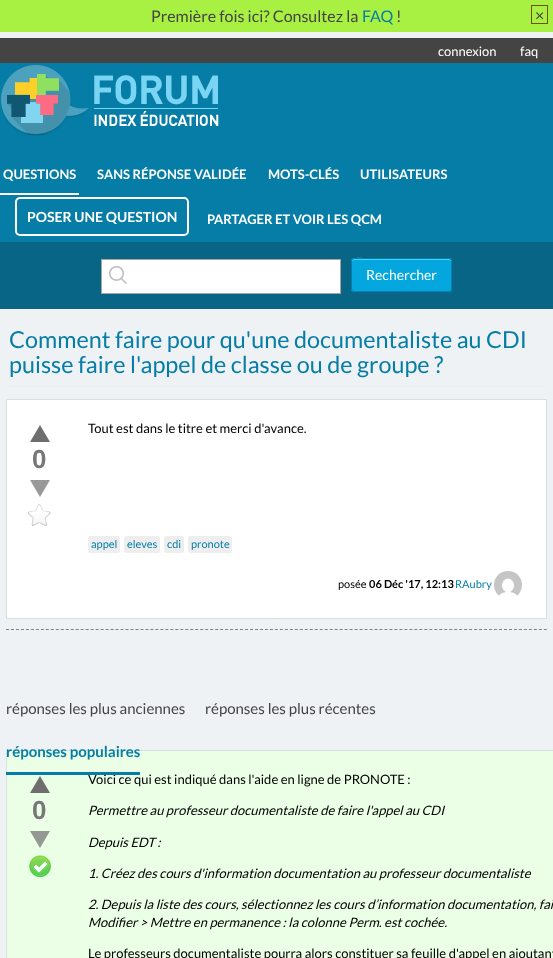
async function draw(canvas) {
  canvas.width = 553;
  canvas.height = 958;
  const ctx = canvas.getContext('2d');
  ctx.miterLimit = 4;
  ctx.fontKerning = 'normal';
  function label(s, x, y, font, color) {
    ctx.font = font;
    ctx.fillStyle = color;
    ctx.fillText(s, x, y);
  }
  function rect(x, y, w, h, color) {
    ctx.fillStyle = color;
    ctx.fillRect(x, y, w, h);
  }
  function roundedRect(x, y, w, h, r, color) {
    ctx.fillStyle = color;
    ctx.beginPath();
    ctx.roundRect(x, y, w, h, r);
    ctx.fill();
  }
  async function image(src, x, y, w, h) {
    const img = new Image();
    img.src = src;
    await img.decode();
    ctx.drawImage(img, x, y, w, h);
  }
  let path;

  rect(0, 0, 553, 958, '#eef2f4');
  rect(0, 0, 553, 32, '#a8f042');
  label('Première fois ici? Consultez la', 151, 22, '16px Lato', '#444');
  label('FAQ', 362, 22, '16px Lato', '#067da6');
  label('!', 396, 22, '16px Lato', '#444');
  ctx.strokeStyle = '#735005';
  ctx.strokeRect(531.5, 5.5, 16, 18);
  label('×', 535, 21, '16px Lato', '#444');
  rect(0, 63, 553, 179, '#067da6');
  rect(0, 38, 553, 25, '#444');
  label('connexion', 438, 56, '13px Lato', '#fff');
  label('faq', 520, 56, '13px Lato', '#fff');
  await image('assets/img1.png', 1, 65, 218, 71);
  rect(0, 193, 79, 2, '#fff');
  label('QUESTIONS', 3, 179, 'bold 13px Lato', '#fff');
  label('SANS RÉPONSE VALIDÉE', 97, 179, 'bold 13px Lato', '#fff');
  label('MOTS-CLÉS', 268, 179, 'bold 13px Lato', '#fff');
  label('UTILISATEURS', 360, 179, 'bold 13px Lato', '#fff');
  ctx.beginPath();
  ctx.roundRect(16, 198, 172, 37, 4);
  ctx.strokeStyle = '#fff';
  ctx.lineWidth = 2;
  ctx.stroke();
  label('POSER UNE QUESTION', 27, 222, 'bold 14px Lato', '#fff');
  label('PARTAGER ET VOIR LES QCM', 207, 224, 'bold 13px Lato', '#fff');
  rect(0, 242, 553, 67, '#096585');
  rect(102, 260, 238, 33, '#fff');
  await image('assets/img2.png', 109, 266, 18, 18);
  ctx.strokeStyle = '#a4a4a4';
  ctx.lineWidth = 1;
  ctx.strokeRect(101.5, 259.5, 239, 34);
  roundedRect(351, 258, 101, 34, 3, '#03a7dd');
  ctx.fillStyle = '#49d0fd';
  path = new Path2D('M354 260H449C450 260 451 261 451 262C451 261 451 259 449 259H370C368 259 352 255 352 262C352 261 353 260 354 260Z');
  ctx.fill(path);
  ctx.beginPath();
  ctx.roundRect(351.5, 258.5, 100, 33, 2.5);
  ctx.strokeStyle = '#0281ab';
  ctx.stroke();
  label('Rechercher', 366, 280, '14px Lato', '#fff');
  rect(6, 386, 541, 1, '#e8eef1');
  label('Comment faire pour qu\'une documentaliste au CDI', 9, 348, '23.4px Lato', '#067da6');
  label('puisse faire l\'appel de classe ou de groupe ?', 9, 373, '23.4px Lato', '#067da6');
  ctx.fillStyle = '#fff';
  ctx.beginPath();
  ctx.rect(6.5, 399.5, 540, 219);
  ctx.fill();
  ctx.strokeStyle = '#d7dfe2';
  ctx.stroke();
  await image('assets/img3.png', 30, 425, 20, 17);
  label('0', 32, 468, 'bold 26px Liberation Sans', '#777');
  await image('assets/img4.png', 30, 480, 20, 17);
  await image('assets/img5.png', 28, 504, 23, 22);
  label('Tout est dans le titre et merci d\'avance.', 88, 433, '13px Lato', '#000');
  roundedRect(88, 536, 32, 17, 2, '#eee');
  label('appel', 91, 548, '11px Lato', '#067da6');
  roundedRect(124, 536, 36, 17, 2, '#eee');
  label('eleves', 127, 548, '11px Lato', '#067da6');
  roundedRect(164, 536, 20, 17, 2, '#eee');
  label('cdi', 167, 548, '11px Lato', '#067da6');
  roundedRect(188, 536, 44, 17, 2, '#eee');
  label('pronote', 191, 548, '11px Lato', '#067da6');
  label('posée', 338, 588, '11px Lato', '#000');
  label('06 Déc \'17, 12:13', 369, 588, 'bold 11px Lato', '#000');
  label('RAubry', 455, 588, '11px Lato', '#067da6');
  await image('assets/img6.png', 494, 571, 28, 25);
  path = new Path2D('M6 629.5H547');
  ctx.strokeStyle = '#808080';
  ctx.setLineDash([3, 1.98]);
  ctx.stroke(path);
  label('réponses les plus anciennes', 6, 714, '15px Lato', '#444');
  label('réponses les plus récentes', 205, 714, '15px Lato', '#444');
  rect(7, 751, 546, 207, '#ebffe6');
  rect(6, 750, 547, 1, '#d7dfe2');
  rect(6, 750, 1, 208, '#d7dfe2');
  label('Voici ce qui est indiqué dans l\'aide en ligne de PRONOTE :', 88, 784, '13px Lato', '#000');
  rect(6, 772, 134, 3, '#067da6');
  label('réponses populaires', 6, 757, 'bold 15px Lato', '#067da6');
  await image('assets/img7.png', 30, 776, 20, 17);
  label('0', 32, 819, 'bold 26px Liberation Sans', '#777');
  await image('assets/img8.png', 30, 831, 20, 17);
  await image('assets/img9.png', 29, 855, 22, 22);
  label('Permettre au professeur documentaliste de faire l\'appel au CDI', 88, 815, 'italic 13px Lato', '#000');
  label('Depuis EDT :', 88, 847, 'italic 13px Lato', '#000');
  label('1. Créez des cours d\'information documentation au professeur documentaliste', 88, 878, 'italic 13px Lato', '#000');
  label('2. Depuis la liste des cours, sélectionnez les cours d’information documentation, fai', 88, 909, 'italic 13px Lato', '#000');
  label('Modifier > Mettre en permanence : la colonne Perm. est cochée.', 88, 927, 'italic 13px Lato', '#000');
  label('Le professeurs documentaliste pourra alors constituer sa feuille d\'appel en ajoutant', 88, 958, '13px Lato', '#000');
}

draw(document.querySelector('canvas'));
